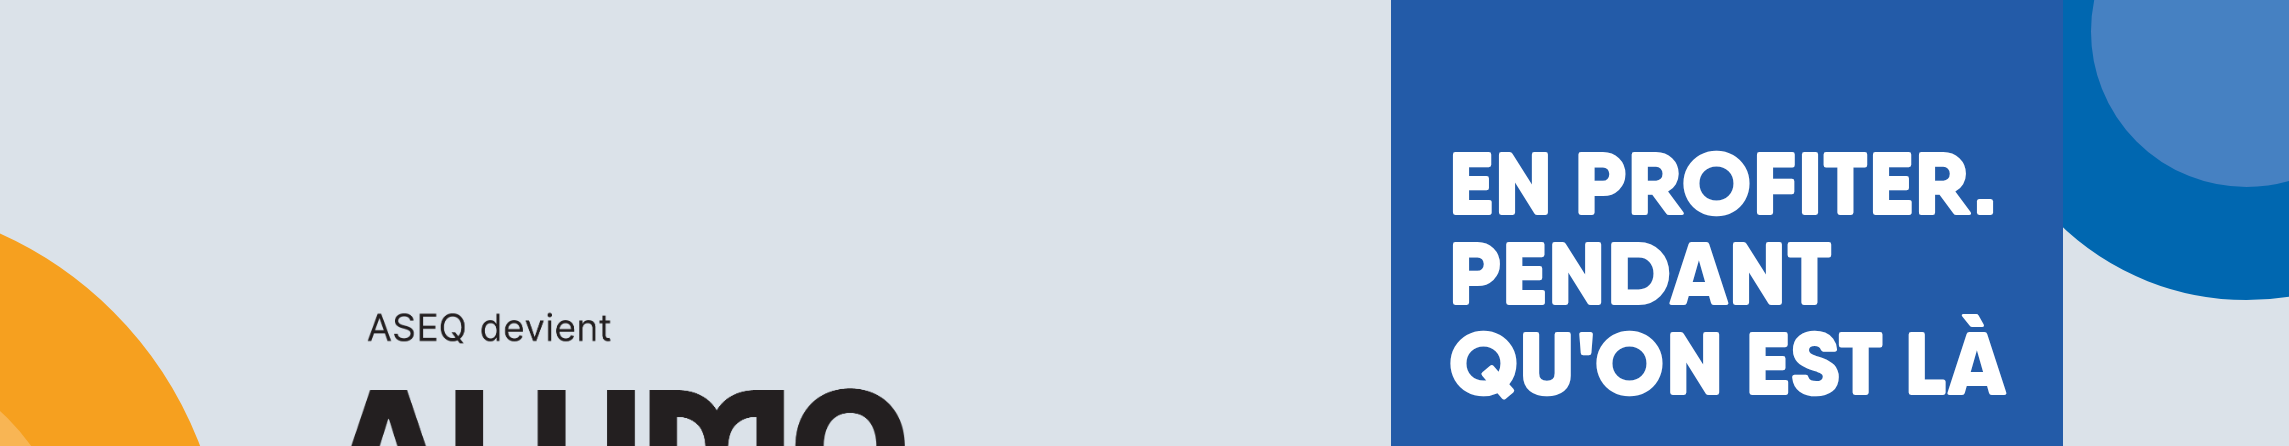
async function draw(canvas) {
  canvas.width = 2289;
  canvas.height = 446;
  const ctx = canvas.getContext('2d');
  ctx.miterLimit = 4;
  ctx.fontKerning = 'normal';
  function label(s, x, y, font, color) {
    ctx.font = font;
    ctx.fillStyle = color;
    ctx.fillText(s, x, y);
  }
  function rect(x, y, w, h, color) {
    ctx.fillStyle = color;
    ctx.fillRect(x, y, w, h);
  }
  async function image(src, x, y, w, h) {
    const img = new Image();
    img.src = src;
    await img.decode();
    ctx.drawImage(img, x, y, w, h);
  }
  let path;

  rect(0, 0, 2289, 446, '#dbe2e9');
  ctx.fillStyle = '#f8b554';
  path = new Path2D('M0 200H-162.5C51.5 200 225 373.5 225 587.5V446.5C225 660.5 51.5 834-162.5 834H0Z');
  ctx.fill(path);
  ctx.beginPath();
  ctx.roundRect(-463, 275, 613, 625, 312.5);
  ctx.strokeStyle = '#f6a01f';
  ctx.lineWidth = 150;
  ctx.stroke();
  await image('assets/img1.png', 350, 312, 555, 134);
  ctx.fillStyle = '#4681c2';
  ctx.beginPath();
  ctx.arc(2246.5, 31.5, 212, 0, 2 * Math.PI);
  ctx.fill();
  ctx.strokeStyle = '#0067b0';
  ctx.lineWidth = 113;
  ctx.stroke();
  rect(1391, 0, 672, 446, '#235ba8');
  label('EN PROFITER.', 1448, 215, '900 90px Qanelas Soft', '#fff');
  label('PENDANT', 1448, 305, '900 90px Qanelas Soft', '#fff');
  label('QU\'ON EST LÀ', 1448, 395, '900 90px Qanelas Soft', '#fff');
}

draw(document.querySelector('canvas'));
